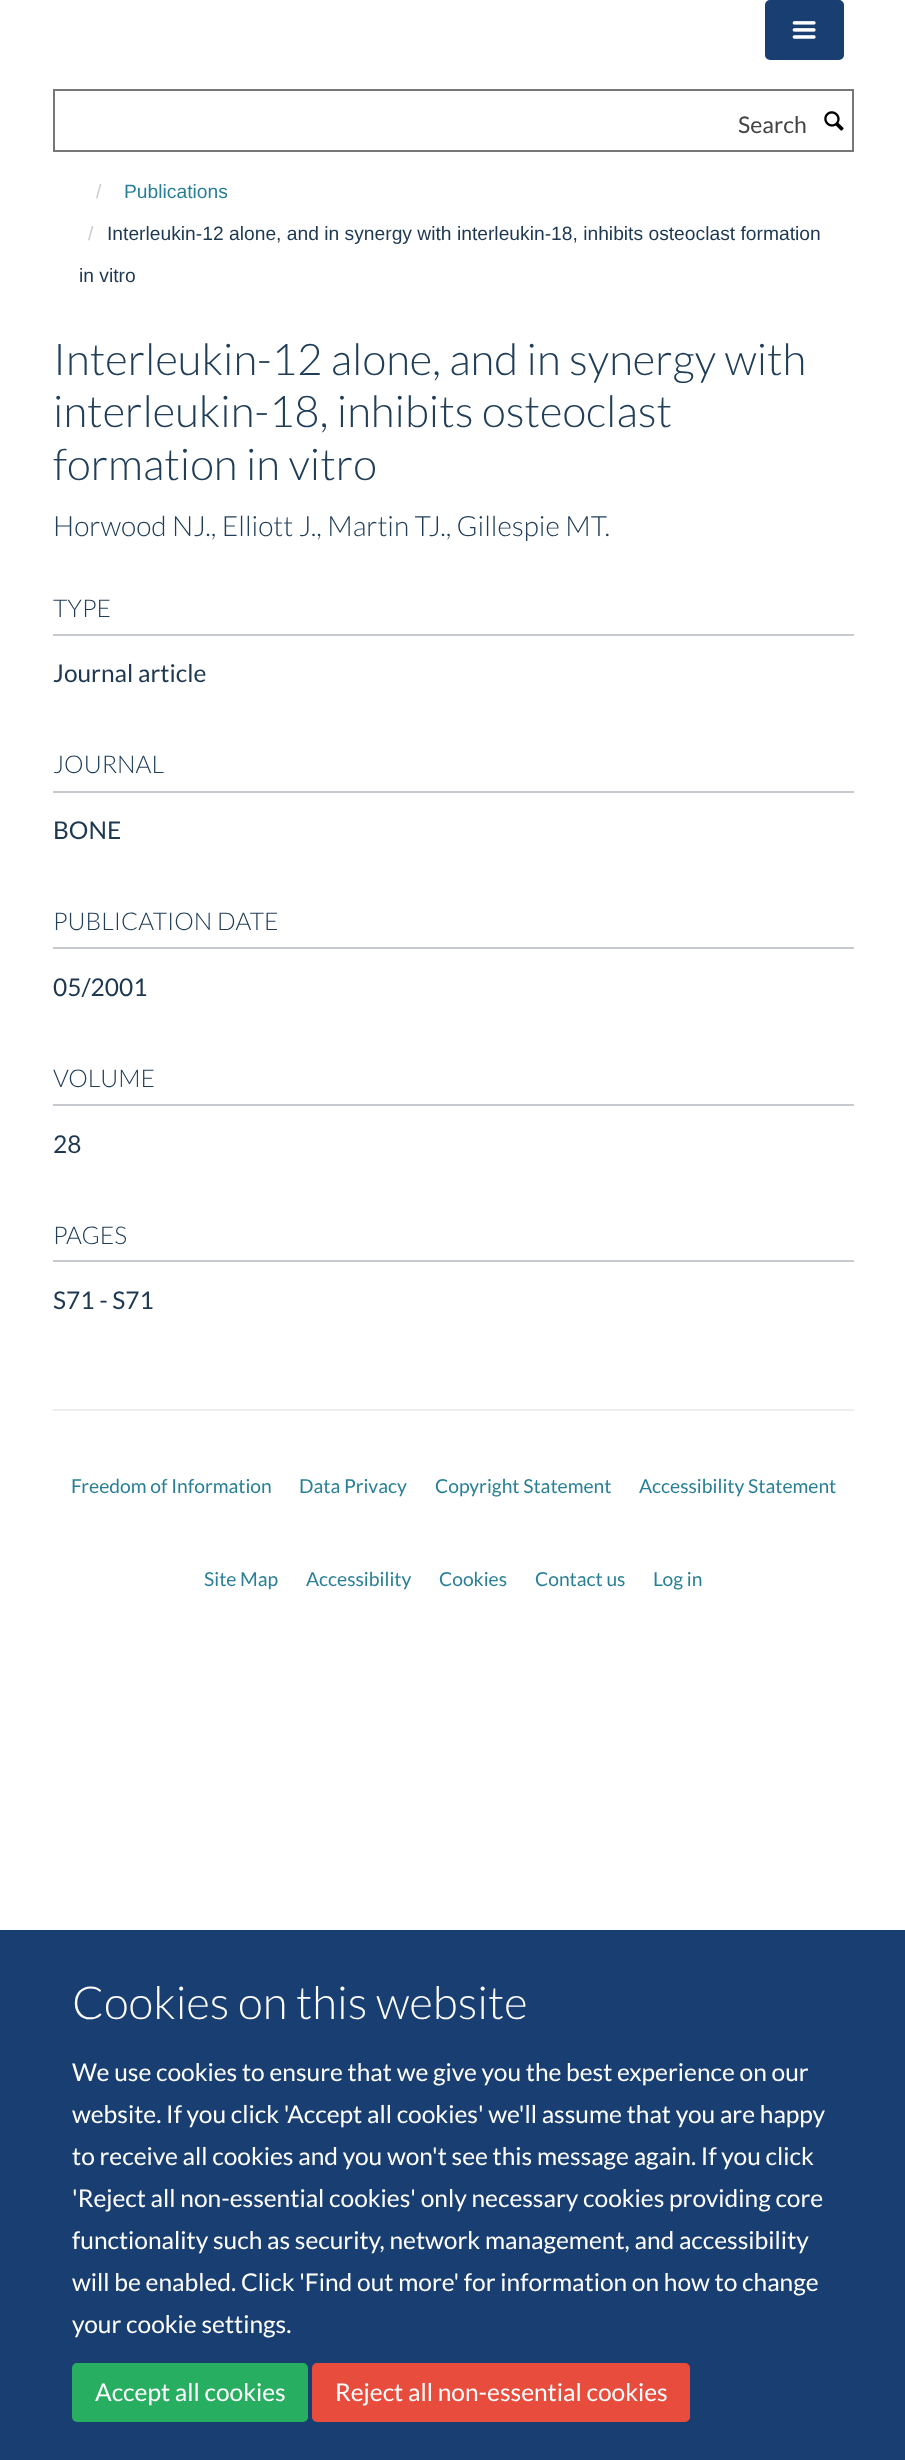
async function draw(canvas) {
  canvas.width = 905;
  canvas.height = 2460;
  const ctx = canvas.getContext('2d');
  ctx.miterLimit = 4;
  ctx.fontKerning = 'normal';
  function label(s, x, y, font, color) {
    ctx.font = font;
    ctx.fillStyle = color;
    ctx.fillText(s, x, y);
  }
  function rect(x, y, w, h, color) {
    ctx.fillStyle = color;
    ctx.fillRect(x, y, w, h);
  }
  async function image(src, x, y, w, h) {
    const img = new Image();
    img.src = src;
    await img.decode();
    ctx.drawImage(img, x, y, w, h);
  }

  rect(0, 0, 905, 2460, '#fff');
  ctx.fillStyle = '#193e72';
  ctx.beginPath();
  ctx.roundRect(766, 1, 77, 58, 4);
  ctx.fill();
  ctx.strokeStyle = '#193e72';
  ctx.lineWidth = 2;
  ctx.stroke();
  await image('assets/img1.png', 792, 21, 24, 18);
  ctx.strokeStyle = '#777';
  ctx.strokeRect(54, 90, 799, 61);
  label('Search', 738, 133, '23px Lato', '#444');
  await image('assets/img2.png', 824, 111, 20, 20);
  label('/', 96, 198, '19.25px Liberation Sans', '#ccc');
  label('Publications', 124, 198, '19.25px Liberation Sans', '#298096');
  label('/', 88, 240, '19.25px Liberation Sans', '#ccc');
  label('Interleukin-12 alone, and in synergy with interleukin-18, inhibits osteoclast formation', 107, 240, '19.25px Liberation Sans', '#1d3850');
  label('in vitro', 79, 282, '19.25px Liberation Sans', '#1d3850');
  label('Interleukin-12 alone, and in synergy with', 53, 375, '300 43.75px Lato', '#203e58');
  label('interleukin-18, inhibits osteoclast', 53, 427, '300 43.75px Lato', '#203e58');
  label('formation in vitro', 53, 480, '300 43.75px Lato', '#203e58');
  label('Horwood NJ., Elliott J., Martin TJ., Gillespie MT.', 53, 536, '300 28px Lato', '#203e58');
  rect(53, 634, 801, 2, '#c6cacf');
  label('TYPE', 53, 617, '300 24.5px Lato', '#203e58');
  label('Journal article', 53, 682, '24.5px Lato', '#1d3850');
  rect(53, 791, 801, 2, '#c6cacf');
  label('JOURNAL', 53, 773, '300 24.5px Lato', '#203e58');
  label('BONE', 53, 839, '24.5px Lato', '#1d3850');
  rect(53, 947, 801, 2, '#c6cacf');
  label('PUBLICATION DATE', 53, 930, '300 24.5px Lato', '#203e58');
  label('05/2001', 53, 996, '24.5px Lato', '#1d3850');
  rect(53, 1104, 801, 2, '#c6cacf');
  label('VOLUME', 53, 1087, '300 24.5px Lato', '#203e58');
  label('28', 53, 1153, '24.5px Lato', '#1d3850');
  rect(53, 1260, 801, 2, '#c6cacf');
  label('PAGES', 53, 1244, '300 24.5px Lato', '#203e58');
  label('S71 - S71', 53, 1309, '24.5px Lato', '#1d3850');
  rect(53, 1409, 801, 2, '#eee');
  label('Freedom of Information', 71, 1493, '19.25px Lato', '#298096');
  label('Data Privacy', 299, 1493, '19.25px Lato', '#298096');
  label('Copyright Statement', 435, 1493, '19.25px Lato', '#298096');
  label('Accessibility Statement', 639, 1493, '19.25px Lato', '#298096');
  label('Site Map', 204, 1586, '19.25px Lato', '#298096');
  label('Accessibility', 306, 1586, '19.25px Lato', '#298096');
  label('Cookies', 439, 1586, '19.25px Lato', '#298096');
  label('Contact us', 535, 1586, '19.25px Lato', '#298096');
  label('Log in', 653, 1586, '19.25px Lato', '#298096');
  rect(0, 1930, 905, 530, '#193e72');
  label('Cookies on this website', 72, 2019, '300 45.5px Lato', '#fff');
  label('We use cookies to ensure that we give you the best experience on our', 72, 2081, '24.5px Lato', '#fff');
  label('website. If you click \'Accept all cookies\' we\'ll assume that you are happy', 72, 2123, '24.5px Lato', '#fff');
  label('to receive all cookies and you won\'t see this message again. If you click', 72, 2165, '24.5px Lato', '#fff');
  label('\'Reject all non-essential cookies\' only necessary cookies providing core', 72, 2207, '24.5px Lato', '#fff');
  label('functionality such as security, network management, and accessibility', 72, 2249, '24.5px Lato', '#fff');
  label('will be enabled. Click \'Find out more\' for information on how to change', 72, 2291, '24.5px Lato', '#fff');
  label('your cookie settings.', 72, 2333, '24.5px Lato', '#fff');
  ctx.fillStyle = '#27ae60';
  ctx.beginPath();
  ctx.roundRect(73, 2364, 234, 57, 4);
  ctx.fill();
  ctx.strokeStyle = '#27ae60';
  ctx.stroke();
  label('Accept all cookies', 95, 2401, '24.5px Lato', '#fff');
  ctx.fillStyle = '#e74c3c';
  ctx.beginPath();
  ctx.roundRect(313, 2364, 376, 57, 4);
  ctx.fill();
  ctx.strokeStyle = '#e74c3c';
  ctx.stroke();
  label('Reject all non-essential cookies', 335, 2401, '24.5px Lato', '#fff');
}

draw(document.querySelector('canvas'));
